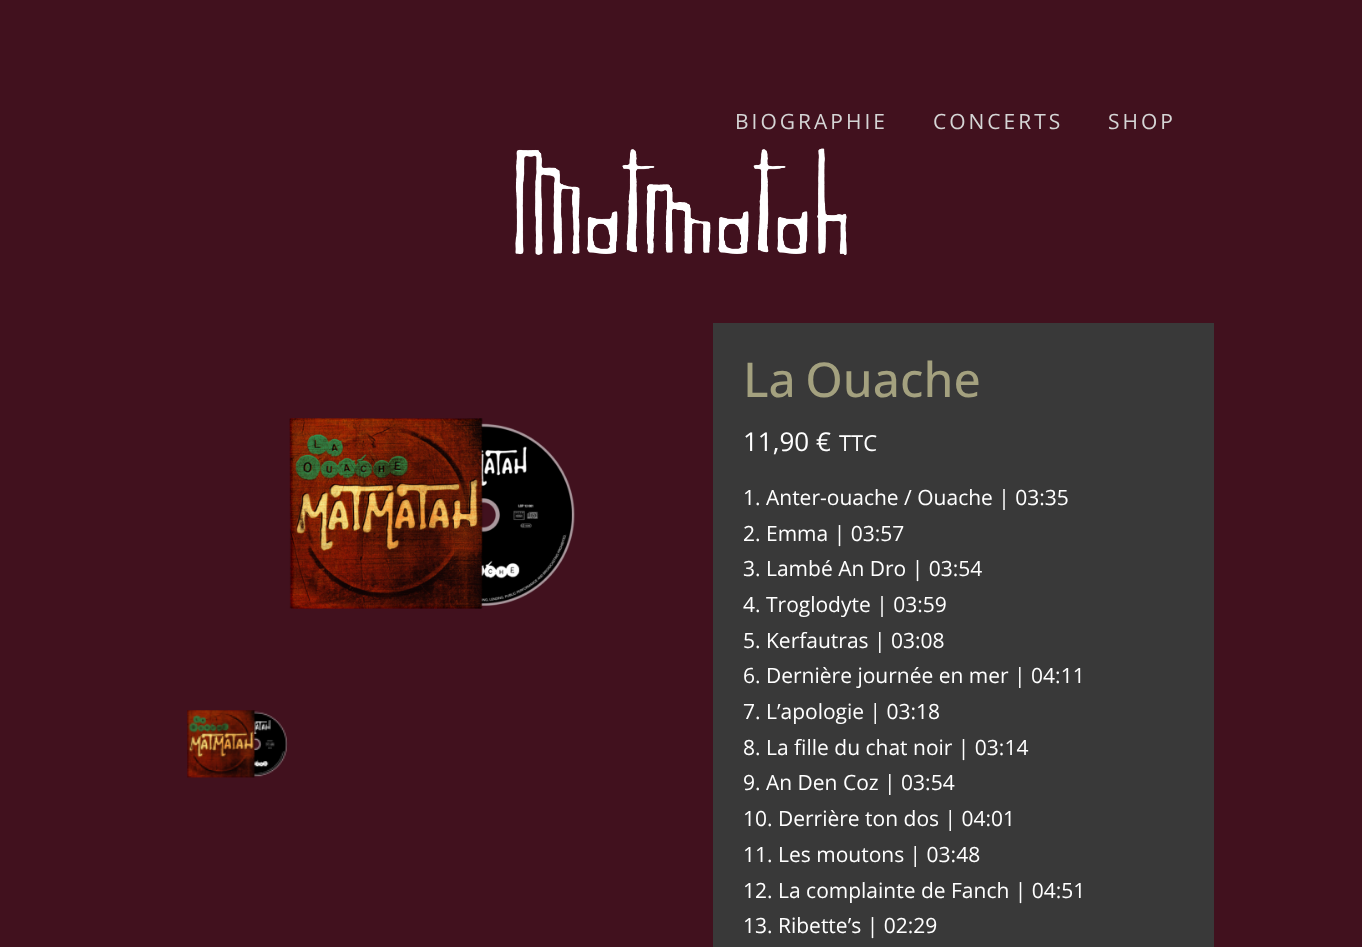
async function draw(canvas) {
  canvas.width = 1362;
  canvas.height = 947;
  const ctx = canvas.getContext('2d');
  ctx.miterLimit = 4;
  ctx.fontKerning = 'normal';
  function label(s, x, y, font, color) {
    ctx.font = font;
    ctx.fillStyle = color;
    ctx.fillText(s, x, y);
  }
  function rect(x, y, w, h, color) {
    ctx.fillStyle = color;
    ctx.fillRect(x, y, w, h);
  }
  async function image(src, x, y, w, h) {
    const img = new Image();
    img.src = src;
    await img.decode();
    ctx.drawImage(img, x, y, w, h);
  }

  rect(0, 0, 1362, 947, '#41111e');
  ctx.letterSpacing = '3px';
  label('BIOGRAPHIE', 735, 129, '21px Open Sans', '#d5d5d5');
  label('CONCERTS', 933, 129, '21px Open Sans', '#d5d5d5');
  label('SHOP', 1108, 129, '21px Open Sans', '#d5d5d5');
  await image('assets/img1.png', 515, 148, 332, 108);
  await image('assets/img2.png', 289, 418, 286, 191);
  await image('assets/img3.png', 187, 710, 101, 68);
  rect(713, 323, 501, 624, '#393939');
  ctx.letterSpacing = '0px';
  ctx.wordSpacing = '-3px';
  label('La Ouache', 743, 397, '500 48px Open Sans', '#a4a17f');
  ctx.wordSpacing = '0px';
  label('11,90 €', 743, 451, '26px Open Sans', '#fff');
  label('TTC', 839, 451, '22px Open Sans', '#fff');
  label('1. Anter-ouache / Ouache | 03:35', 743, 505, '21px Open Sans', '#fff');
  label('2. Emma | 03:57', 743, 541, '21px Open Sans', '#fff');
  label('3. Lambé An Dro | 03:54', 743, 576, '21px Open Sans', '#fff');
  label('4. Troglodyte | 03:59', 743, 612, '21px Open Sans', '#fff');
  label('5. Kerfautras | 03:08', 743, 648, '21px Open Sans', '#fff');
  label('6. Dernière journée en mer | 04:11', 743, 683, '21px Open Sans', '#fff');
  label('7. L’apologie | 03:18', 743, 719, '21px Open Sans', '#fff');
  label('8. La fille du chat noir | 03:14', 743, 755, '21px Open Sans', '#fff');
  label('9. An Den Coz | 03:54', 743, 790, '21px Open Sans', '#fff');
  label('10. Derrière ton dos | 04:01', 743, 826, '21px Open Sans', '#fff');
  label('11. Les moutons | 03:48', 743, 862, '21px Open Sans', '#fff');
  label('12. La complainte de Fanch | 04:51', 743, 898, '21px Open Sans', '#fff');
  label('13. Ribette’s | 02:29', 743, 933, '21px Open Sans', '#fff');
}

draw(document.querySelector('canvas'));
